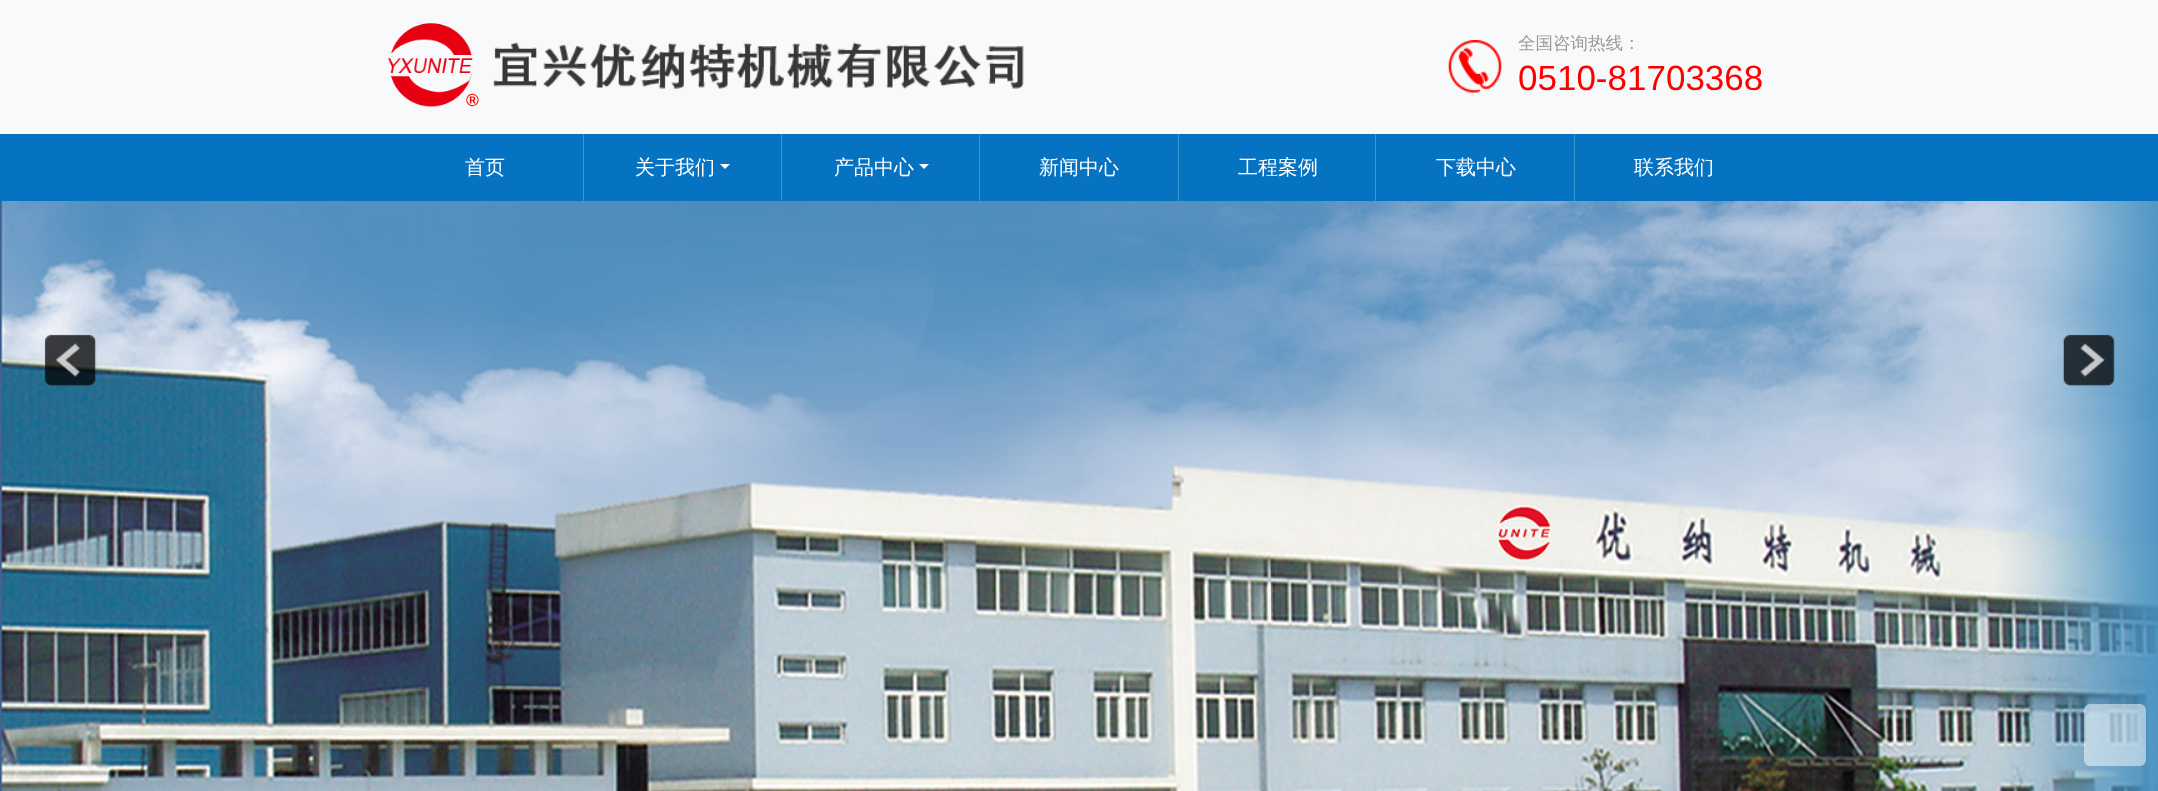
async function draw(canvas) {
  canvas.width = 2158;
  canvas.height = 791;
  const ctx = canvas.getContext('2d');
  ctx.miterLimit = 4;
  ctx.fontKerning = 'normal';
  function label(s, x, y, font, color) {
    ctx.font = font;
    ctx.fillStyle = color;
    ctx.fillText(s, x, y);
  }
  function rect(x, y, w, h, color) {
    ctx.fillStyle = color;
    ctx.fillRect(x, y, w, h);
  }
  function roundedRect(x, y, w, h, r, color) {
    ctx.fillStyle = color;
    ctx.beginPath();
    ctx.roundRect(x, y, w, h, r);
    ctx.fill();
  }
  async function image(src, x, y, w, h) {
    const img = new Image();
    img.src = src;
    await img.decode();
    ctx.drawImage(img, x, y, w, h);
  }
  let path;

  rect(0, 0, 2158, 791, '#f8f9fa');
  await image('assets/img1.png', 1448, 40, 54, 53);
  label('全国咨询热线：', 1518, 49, '500 17.5px WenQuanYi Zen Hei', '#999');
  label('0510-81703368', 1518, 90, '35px Liberation Sans', '#f00');
  await image('assets/img2.png', 493, 42, 531, 47);
  await image('assets/img3.png', 388, 23, 85, 84);
  label('®', 466, 106, 'bold 17.5px Liberation Sans', '#f00');
  rect(0, 134, 2158, 67, '#0672c2');
  label('首页', 465, 174, '500 20px WenQuanYi Zen Hei', '#fff');
  rect(583, 134, 1, 67, '#39c');
  label('关于我们', 635, 174, '500 20px WenQuanYi Zen Hei', '#fff');
  path = new Path2D('M720 164H730L725 169Z');
  ctx.fill(path);
  rect(781, 134, 1, 67, '#39c');
  label('产品中心', 834, 174, '500 20px WenQuanYi Zen Hei', '#fff');
  path = new Path2D('M919 164H929L924 169Z');
  ctx.fill(path);
  rect(979, 134, 1, 67, '#39c');
  label('新闻中心', 1039, 174, '500 20px WenQuanYi Zen Hei', '#fff');
  rect(1178, 134, 1, 67, '#39c');
  label('工程案例', 1238, 174, '500 20px WenQuanYi Zen Hei', '#fff');
  rect(1375, 134, 1, 67, '#39c');
  label('下载中心', 1436, 174, '500 20px WenQuanYi Zen Hei', '#fff');
  rect(1574, 134, 1, 67, '#39c');
  label('联系我们', 1634, 174, '500 20px WenQuanYi Zen Hei', '#fff');
  await image('assets/img4.png', 0, 201, 2158, 590);
  await image('assets/img5.png', 44, 334, 53, 53);
  await image('assets/img6.png', 2063, 334, 52, 53);
  roundedRect(2084, 704, 62, 62, 6, '#ffffff80');
}

draw(document.querySelector('canvas'));
